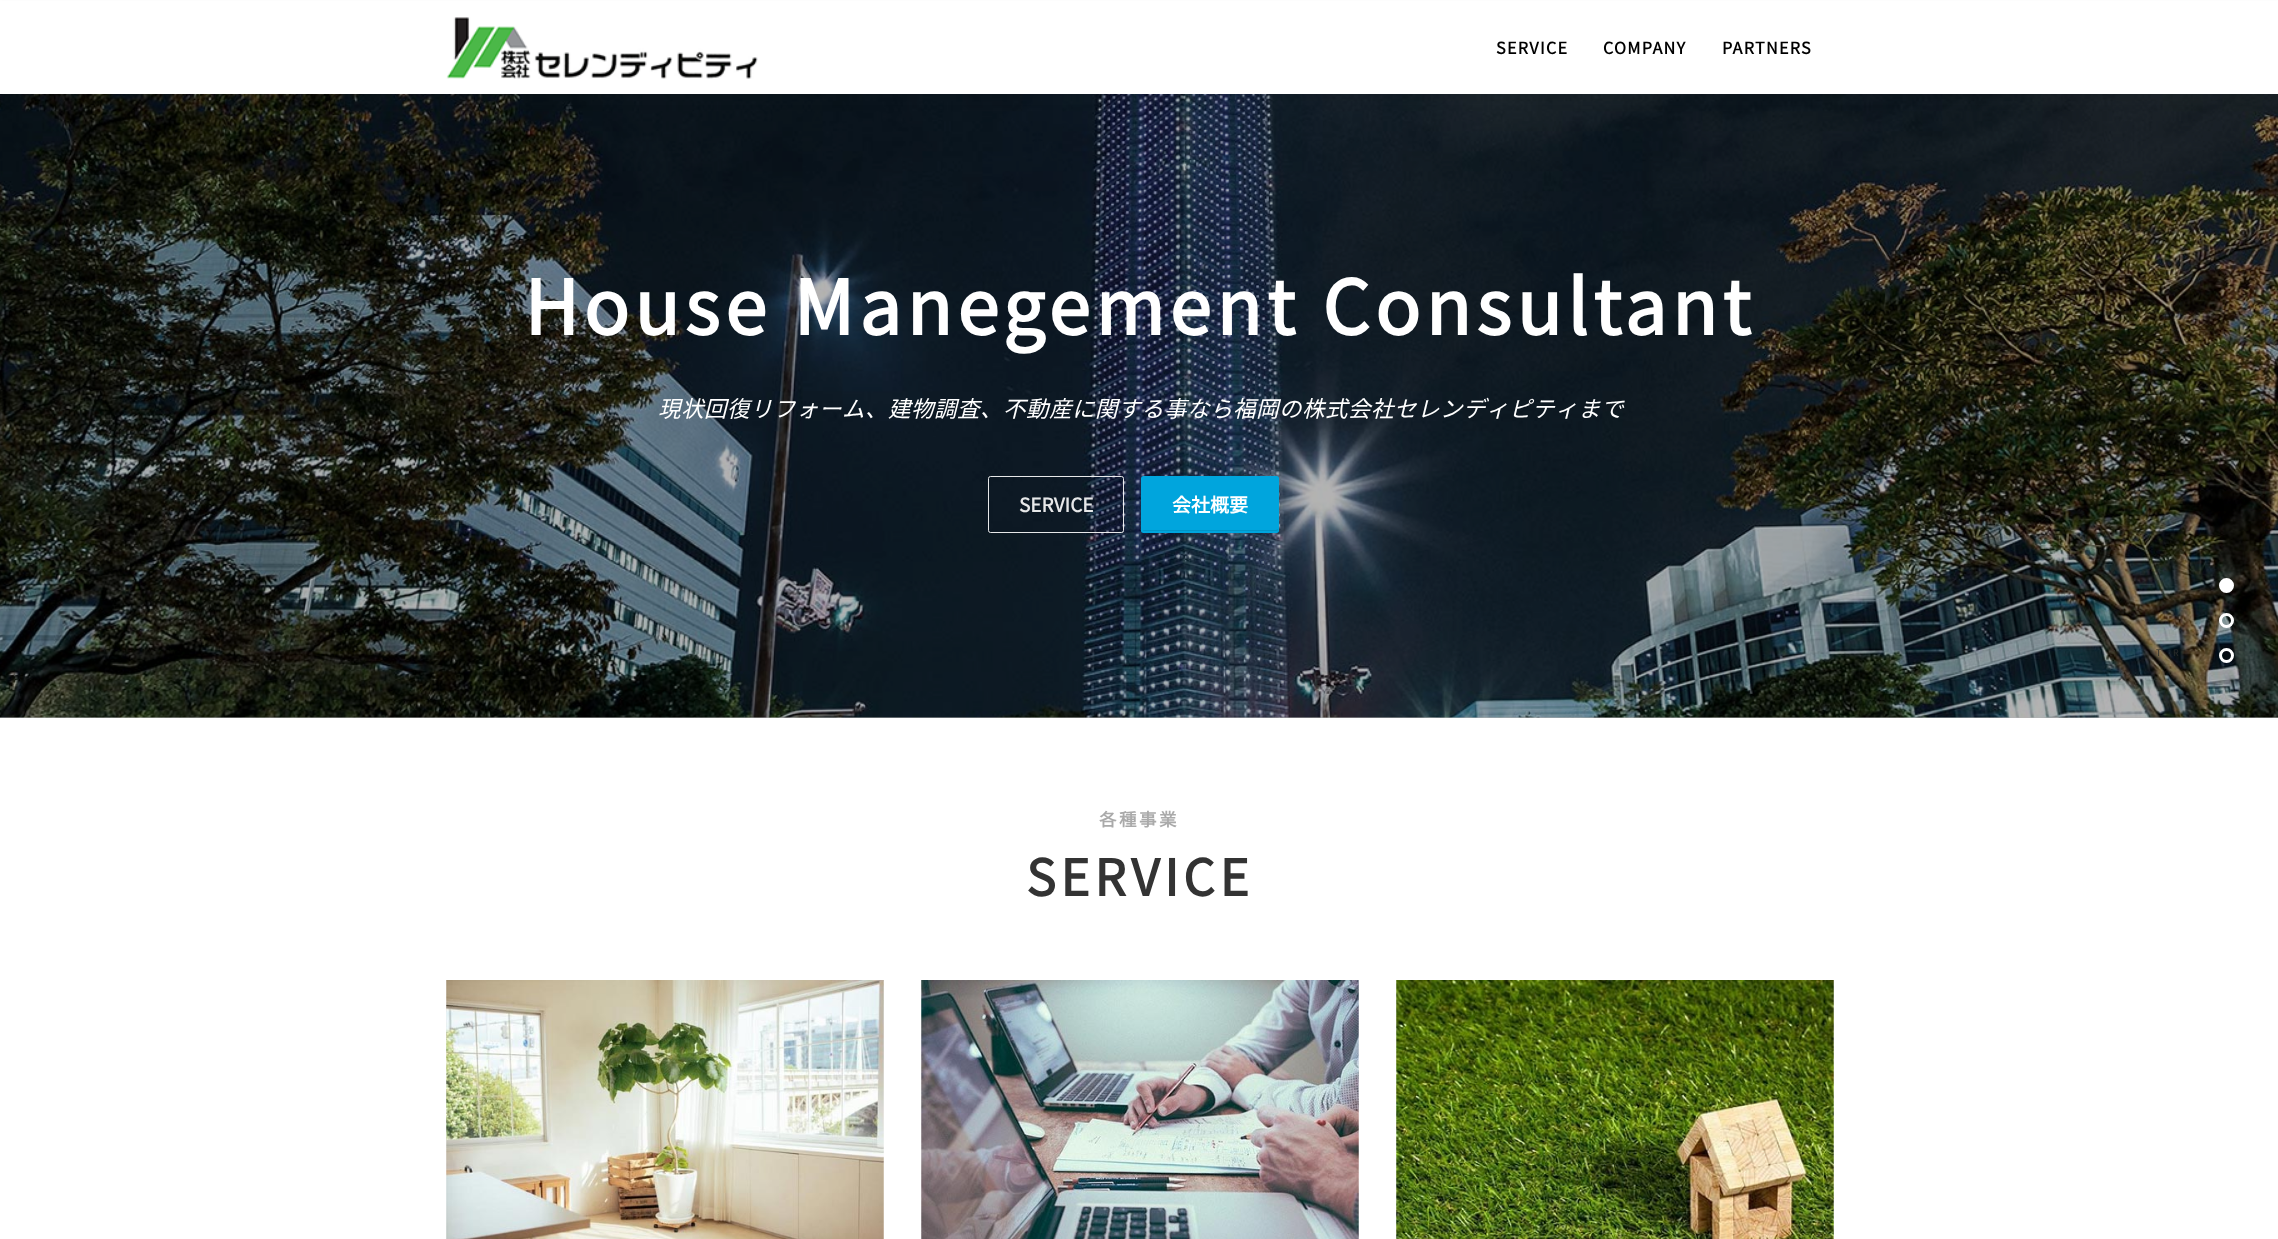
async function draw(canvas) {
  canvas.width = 2278;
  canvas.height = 1239;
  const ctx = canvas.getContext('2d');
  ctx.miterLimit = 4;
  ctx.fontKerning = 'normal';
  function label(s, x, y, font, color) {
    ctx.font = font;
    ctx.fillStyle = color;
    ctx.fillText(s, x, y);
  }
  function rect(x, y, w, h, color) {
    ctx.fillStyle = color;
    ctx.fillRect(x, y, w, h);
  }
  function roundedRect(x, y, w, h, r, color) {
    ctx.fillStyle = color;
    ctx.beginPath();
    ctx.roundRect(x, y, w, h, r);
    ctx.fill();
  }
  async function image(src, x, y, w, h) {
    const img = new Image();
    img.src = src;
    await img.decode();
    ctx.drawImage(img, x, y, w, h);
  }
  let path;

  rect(0, 0, 2278, 1239, '#fff');
  rect(0, 717, 2278, 1, '#b3b3b3');
  await image('assets/img2.png', 0, 94, 2278, 624);
  ctx.fillStyle = '#3232320f';
  ctx.filter = 'blur(6px)';
  ctx.beginPath();
  ctx.rect(0, 6, 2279, 94);
  ctx.fill();
  ctx.filter = 'none';
  rect(0, 1, 2278, 93, '#fff');
  await image('assets/img1.png', 446, 17, 312, 62);
  ctx.letterSpacing = '1.25px';
  label('SERVICE', 1496, 54, 'bold 16.25px Noto Sans JP', '#000');
  label('COMPANY', 1603, 54, 'bold 16.25px Noto Sans JP', '#000');
  label('PARTNERS', 1722, 54, 'bold 16.25px Noto Sans JP', '#000');
  ctx.letterSpacing = '5px';
  label('House Manegement', 524, 335, 'bold 75px Noto Sans JP', '#fff');
  label('Consultant', 1322, 335, 'bold 75px Noto Sans JP', '#fff');
  ctx.letterSpacing = '0.5px';
  label('現状回復リフォーム、建物調査、不動産に関する事なら福岡の株式会社セレンディピティまで', 658, 417, 'italic 100 22.5px Noto Sans JP', '#fff');
  ctx.beginPath();
  ctx.roundRect(988.5, 476.5, 135, 56, 2);
  ctx.strokeStyle = '#ffffffe6';
  ctx.stroke();
  ctx.letterSpacing = '0px';
  label('SERVICE', 1019, 512, 'bold 19px Noto Sans JP', '#e7e8e9');
  roundedRect(1141, 476, 138, 57, 2.5, '#00a5dd');
  ctx.fillStyle = '#0095c7';
  path = new Path2D('M1143 530C1143 530 1143 531 1144 531H1277C1278 531 1278 530 1278 529L1276 530Z');
  ctx.fill(path);
  label('会社概要', 1172, 512, 'bold 19px Noto Sans JP', '#fff');
  ctx.letterSpacing = '2.5px';
  label('各種事業', 1099, 826, 'bold 17.5px Noto Sans JP', '#aaa');
  ctx.letterSpacing = '4.5px';
  label('SERVICE', 1026, 896, 'bold 50px Noto Sans JP', '#333');
  await image('assets/img3.png', 446, 980, 438, 259);
  await image('assets/img4.png', 921, 980, 438, 259);
  await image('assets/img5.png', 1396, 980, 438, 259);
  ctx.fillStyle = '#fff';
  ctx.beginPath();
  ctx.arc(2226.5, 585.5, 6, 0, 2 * Math.PI);
  ctx.fill();
  ctx.strokeStyle = '#fff';
  ctx.lineWidth = 3;
  ctx.stroke();
  ctx.beginPath();
  ctx.arc(2226.5, 620.5, 6, 0, 2 * Math.PI);
  ctx.stroke();
  ctx.letterSpacing = '0px';
  label('T', 2156, 656, '100 9px Noto Sans JP', '#292c2b');
  label('R', 2173, 656, '100 9px Noto Sans JP', '#292c2b');
  ctx.beginPath();
  ctx.arc(2226.5, 655.5, 6, 0, 2 * Math.PI);
  ctx.stroke();
}

draw(document.querySelector('canvas'));
